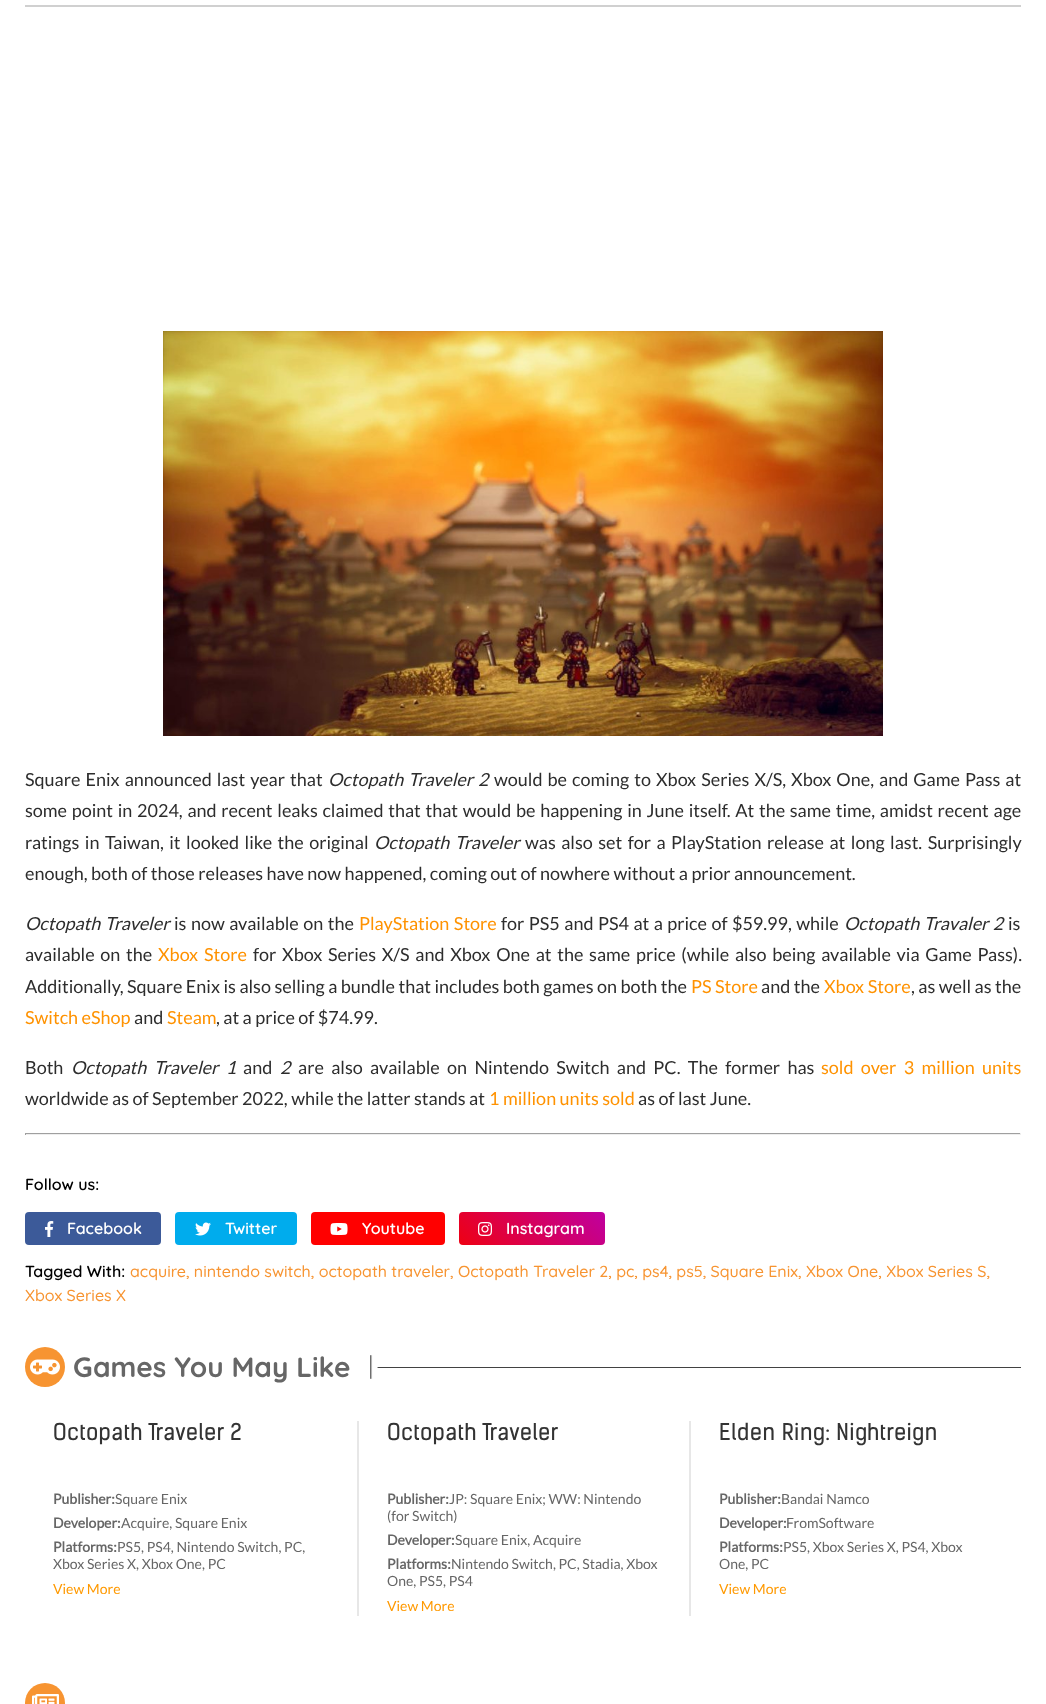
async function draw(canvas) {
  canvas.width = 1046;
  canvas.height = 1704;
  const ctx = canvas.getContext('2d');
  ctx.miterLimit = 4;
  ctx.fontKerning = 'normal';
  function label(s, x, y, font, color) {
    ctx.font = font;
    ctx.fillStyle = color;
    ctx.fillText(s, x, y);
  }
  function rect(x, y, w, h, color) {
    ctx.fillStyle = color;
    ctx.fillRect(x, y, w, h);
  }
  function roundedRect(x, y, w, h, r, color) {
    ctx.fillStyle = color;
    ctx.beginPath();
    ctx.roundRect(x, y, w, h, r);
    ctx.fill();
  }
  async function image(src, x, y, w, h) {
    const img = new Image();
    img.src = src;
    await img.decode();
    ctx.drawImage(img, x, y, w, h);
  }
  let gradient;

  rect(0, 0, 1046, 1704, '#fff');
  rect(25, 5, 996, 2, '#d0d0d0');
  await image('assets/img1.png', 163, 331, 720, 405);
  ctx.wordSpacing = '1.6px';
  label('Square Enix announced last year that', 25, 786, '18px Lato', '#2d2d2d');
  label('Octopath Traveler 2', 328, 786, 'italic 18px Lato', '#2d2d2d');
  label('would be coming to Xbox Series X/S, Xbox One, and Game Pass at', 494, 786, '18px Lato', '#2d2d2d');
  ctx.wordSpacing = '1.25px';
  label('some point in 2024, and recent leaks claimed that that would be happening in June itself. At the same time, amidst recent age', 25, 817, '18px Lato', '#2d2d2d');
  ctx.wordSpacing = '2px';
  label('ratings in Taiwan, it looked like the original', 25, 849, '18px Lato', '#2d2d2d');
  label('Octopath Traveler', 374, 849, 'italic 18px Lato', '#2d2d2d');
  label('was also set for a PlayStation release at long last. Surprisingly', 525, 849, '18px Lato', '#2d2d2d');
  ctx.wordSpacing = '0px';
  label('enough, both of those releases have now happened, coming out of nowhere without a prior announcement.', 25, 880, '18px Lato', '#2d2d2d');
  ctx.wordSpacing = '1px';
  label('Octopath Traveler', 25, 930, 'italic 18px Lato', '#2d2d2d');
  label('is now available on the', 174, 930, '18px Lato', '#2d2d2d');
  label('PlayStation Store', 359, 930, '18px Lato', '#ff9200');
  label('for PS5 and PS4 at a price of $59.99, while', 501, 930, '18px Lato', '#2d2d2d');
  label('Octopath Travaler 2', 844, 930, 'italic 18px Lato', '#2d2d2d');
  ctx.wordSpacing = '0px';
  label('is', 1008, 930, '18px Lato', '#2d2d2d');
  ctx.wordSpacing = '2.25px';
  label('available on the', 25, 961, '18px Lato', '#2d2d2d');
  label('Xbox Store', 158, 961, '18px Lato', '#ff9200');
  label('for Xbox Series X/S and Xbox One at the same price (while also being available via Game Pass).', 253, 961, '18px Lato', '#2d2d2d');
  ctx.wordSpacing = '0px';
  label('Additionally, Square Enix is also selling a bundle that includes both games on both the', 25, 993, '18px Lato', '#2d2d2d');
  label('PS Store', 691, 993, '18px Lato', '#ff9200');
  label('and the', 761, 993, '18px Lato', '#2d2d2d');
  label('Xbox Store', 824, 993, '18px Lato', '#ff9200');
  label(', as well as the', 911, 993, '18px Lato', '#2d2d2d');
  label('Switch eShop', 25, 1024, '18px Lato', '#ff9200');
  label('and', 134, 1024, '18px Lato', '#2d2d2d');
  label('Steam', 167, 1024, '18px Lato', '#ff9200');
  label(', at a price of $74.99.', 216, 1024, '18px Lato', '#2d2d2d');
  label('Both', 25, 1074, '18px Lato', '#2d2d2d');
  ctx.wordSpacing = '3.9px';
  label('Octopath Traveler 1', 71, 1074, 'italic 18px Lato', '#2d2d2d');
  ctx.wordSpacing = '0px';
  label('and', 243, 1074, '18px Lato', '#2d2d2d');
  label('2', 280, 1074, 'italic 18px Lato', '#2d2d2d');
  ctx.wordSpacing = '3.9px';
  label('are also available on Nintendo Switch and PC. The former has', 298, 1074, '18px Lato', '#2d2d2d');
  label('sold over 3 million units', 821, 1074, '18px Lato', '#ff9200');
  ctx.wordSpacing = '0px';
  label('worldwide as of September 2022, while the latter stands at', 25, 1105, '18px Lato', '#2d2d2d');
  label('1 million units sold', 489, 1105, '18px Lato', '#ff9200');
  label('as of last June.', 638, 1105, '18px Lato', '#2d2d2d');
  rect(25, 1133, 996, 1, '#9f9f9f');
  rect(1020, 1133, 1, 2, '#eee');
  rect(25, 1134, 996, 1, '#eee');
  rect(25, 1133, 1, 2, '#9f9f9f');
  label('Follow us:', 25, 1190, '600 16px Quicksand', '#000');
  roundedRect(25, 1212, 136, 33, 4, '#3c5a99');
  await image('assets/img2.png', 45, 1221, 9, 16);
  label('Facebook', 67, 1234, '600 16px Quicksand', '#fff');
  roundedRect(175, 1212, 122, 33, 4, '#00aced');
  await image('assets/img3.png', 195, 1222, 16, 14);
  label('Twitter', 225, 1234, '600 16px Quicksand', '#fff');
  roundedRect(311, 1212, 134, 33, 4, '#f00');
  await image('assets/img4.png', 330, 1223, 18, 12);
  label('Youtube', 362, 1234, '600 16px Quicksand', '#fff');
  gradient = ctx.createLinearGradient(487, 1273, 577, 1184);
  gradient.addColorStop(0, '#ee0013');
  gradient.addColorStop(1, '#bf00a0');
  ctx.fillStyle = gradient;
  ctx.beginPath();
  ctx.roundRect(459, 1212, 146, 33, 4);
  ctx.fill();
  await image('assets/img5.png', 478, 1222, 14, 14);
  label('Instagram', 506, 1234, '600 16px Quicksand', '#fff');
  label('Tagged With:', 25, 1277, '600 16px Quicksand', '#000');
  label('acquire, nintendo switch, octopath traveler, Octopath Traveler 2, pc, ps4, ps5, Square Enix, Xbox One, Xbox Series S,', 130, 1277, '500 16px Quicksand', '#f79431');
  label('Xbox Series X', 25, 1301, '500 16px Quicksand', '#f79431');
  ctx.beginPath();
  ctx.arc(45, 1367, 20, 0, 2 * Math.PI);
  ctx.fill();
  await image('assets/img6.png', 30, 1359, 30, 16);
  label('Games You May Like', 73, 1377, 'bold 28px Quicksand', '#666');
  await image('assets/img7.png', 370, 1355, 651, 24);
  ctx.letterSpacing = '0.5px';
  label('Octopath Traveler 2', 53, 1440, '22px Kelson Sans', '#333');
  ctx.letterSpacing = '0px';
  label('Publisher:', 53, 1504, 'bold 14px Lato', '#666');
  label('Square Enix', 115, 1504, '14px Lato', '#666');
  label('Developer:', 53, 1528, 'bold 14px Lato', '#666');
  label('Acquire, Square Enix', 121, 1528, '14px Lato', '#666');
  label('Platforms:', 53, 1552, 'bold 14px Lato', '#666');
  label('PS5, PS4, Nintendo Switch, PC,', 117, 1552, '14px Lato', '#666');
  label('Xbox Series X, Xbox One, PC', 53, 1569, '14px Lato', '#666');
  label('View More', 53, 1594, '14px Lato', '#f90');
  rect(357, 1421, 2, 195, '#e7e7e7');
  ctx.letterSpacing = '0.5px';
  label('Octopath Traveler', 387, 1440, '22px Kelson Sans', '#333');
  ctx.letterSpacing = '0px';
  label('Publisher:', 387, 1504, 'bold 14px Lato', '#666');
  label('JP: Square Enix; WW: Nintendo', 449, 1504, '14px Lato', '#666');
  label('(for Switch)', 387, 1521, '14px Lato', '#666');
  label('Developer:', 387, 1545, 'bold 14px Lato', '#666');
  label('Square Enix, Acquire', 455, 1545, '14px Lato', '#666');
  label('Platforms:', 387, 1569, 'bold 14px Lato', '#666');
  label('Nintendo Switch, PC, Stadia, Xbox', 451, 1569, '14px Lato', '#666');
  label('One, PS5, PS4', 387, 1586, '14px Lato', '#666');
  label('View More', 387, 1611, '14px Lato', '#f90');
  rect(689, 1421, 2, 195, '#e7e7e7');
  ctx.letterSpacing = '0.5px';
  label('Elden Ring: Nightreign', 719, 1440, '22px Kelson Sans', '#333');
  ctx.letterSpacing = '0px';
  label('Publisher:', 719, 1504, 'bold 14px Lato', '#666');
  label('Bandai Namco', 781, 1504, '14px Lato', '#666');
  label('Developer:', 719, 1528, 'bold 14px Lato', '#666');
  label('FromSoftware', 786, 1528, '14px Lato', '#666');
  label('Platforms:', 719, 1552, 'bold 14px Lato', '#666');
  label('PS5, Xbox Series X, PS4, Xbox', 783, 1552, '14px Lato', '#666');
  label('One, PC', 719, 1569, '14px Lato', '#666');
  label('View More', 719, 1594, '14px Lato', '#f90');
  ctx.fillStyle = '#f79431';
  ctx.beginPath();
  ctx.arc(45, 1703, 20, 0, 2 * Math.PI);
  ctx.fill();
  await image('assets/img8.png', 32, 1694, 27, 10);
}

draw(document.querySelector('canvas'));
